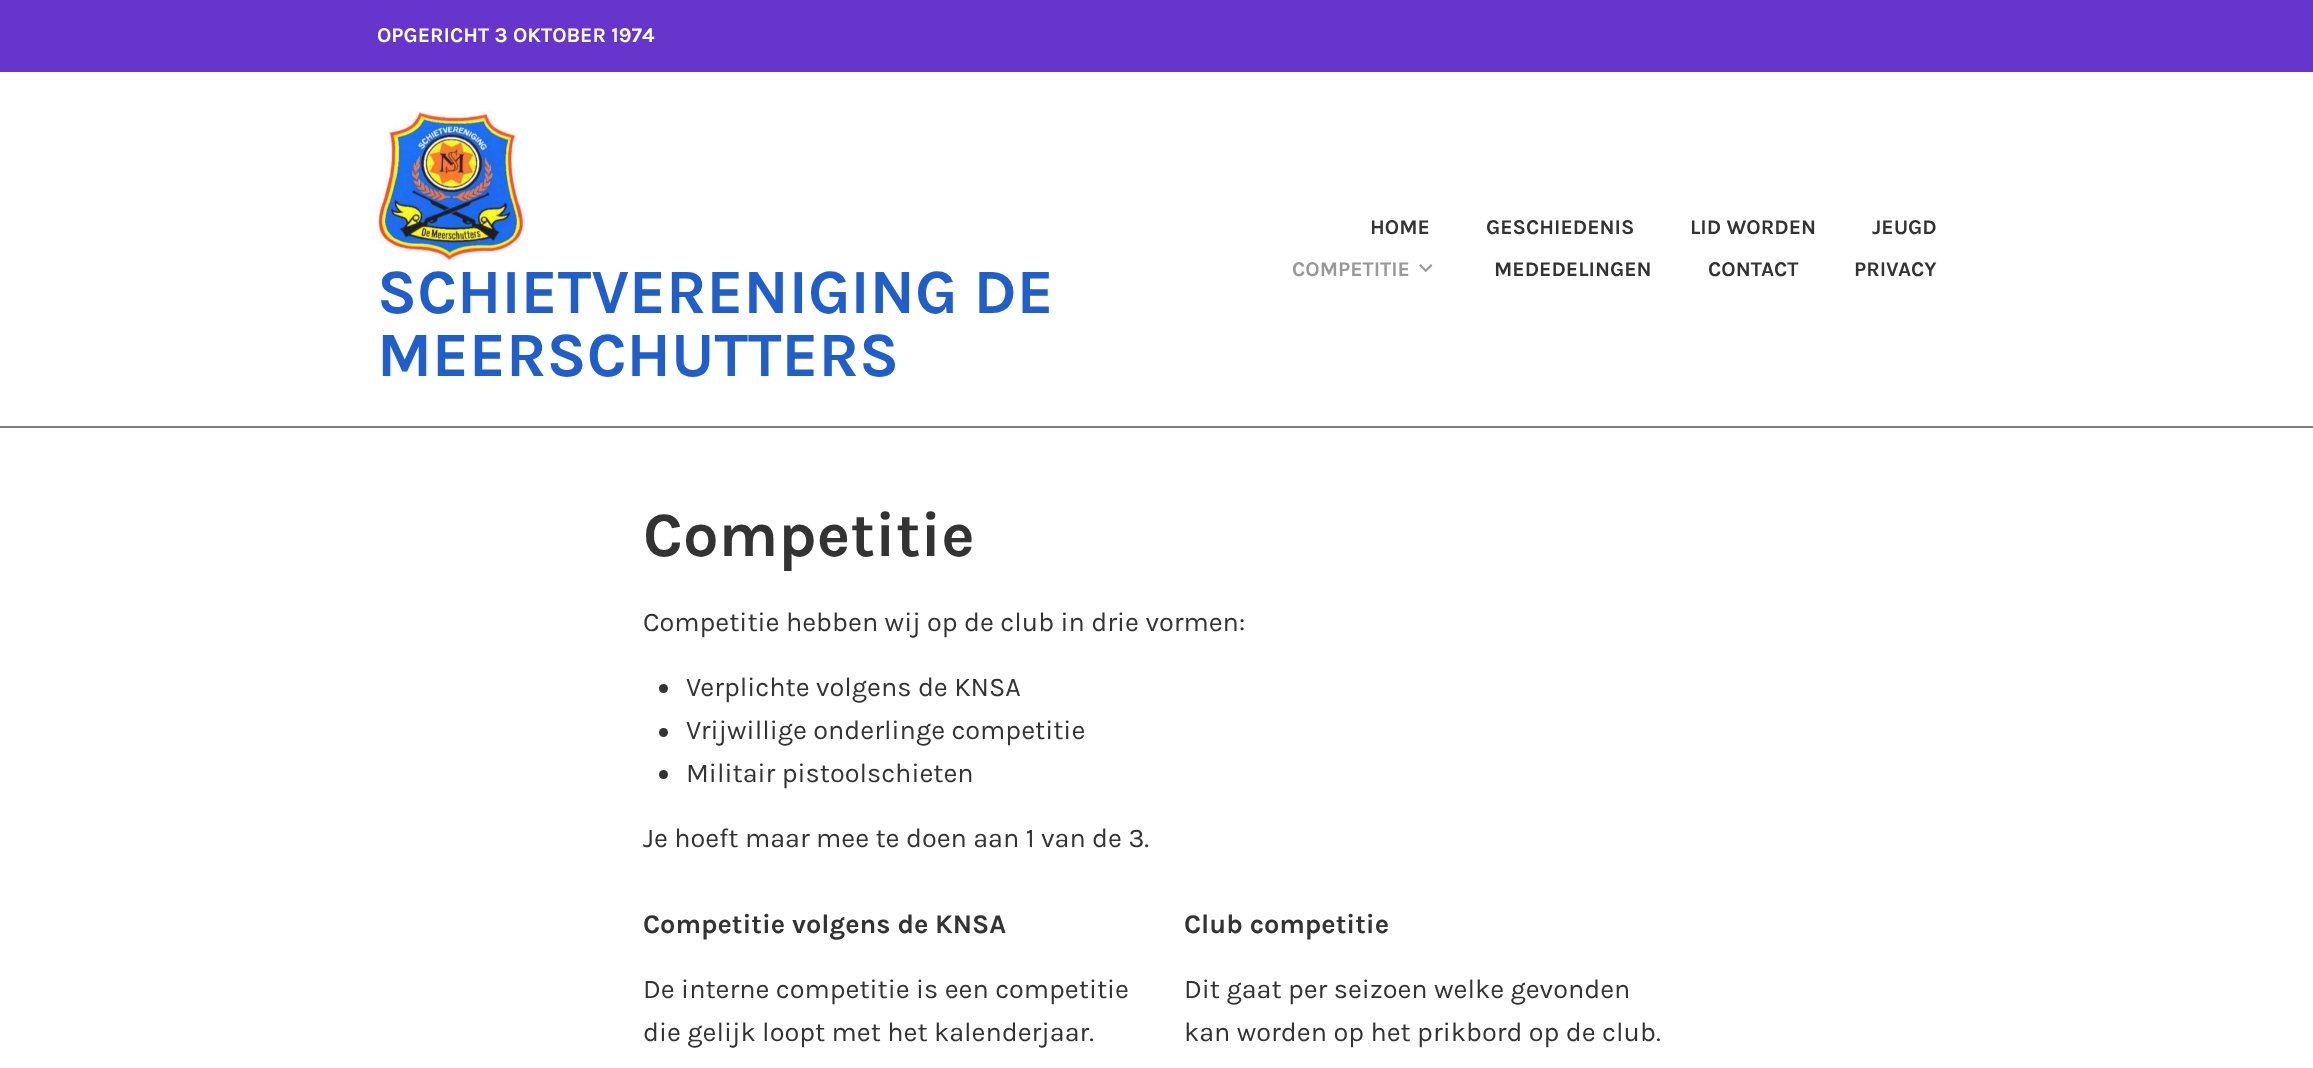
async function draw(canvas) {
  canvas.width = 2313;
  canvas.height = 1068;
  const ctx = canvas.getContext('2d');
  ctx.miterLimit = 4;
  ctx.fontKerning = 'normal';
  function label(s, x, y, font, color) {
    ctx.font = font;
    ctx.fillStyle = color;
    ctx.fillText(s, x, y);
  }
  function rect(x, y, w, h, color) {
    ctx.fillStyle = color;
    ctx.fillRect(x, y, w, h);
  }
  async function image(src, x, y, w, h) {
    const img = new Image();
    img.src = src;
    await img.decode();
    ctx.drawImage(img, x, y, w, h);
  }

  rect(0, 0, 2313, 1068, '#fff');
  rect(0, 0, 2313, 72, '#6636cc');
  label('OPGERICHT 3 OKTOBER 1974', 377, 42, 'bold 21px Karla', '#fff');
  rect(0, 426, 2313, 2, '#808080');
  label('HOME', 1370, 234, 'bold 21px Karla', '#333');
  label('GESCHIEDENIS', 1486, 234, 'bold 21px Karla', '#333');
  label('LID WORDEN', 1690, 234, 'bold 21px Karla', '#333');
  label('JEUGD', 1872, 234, 'bold 21px Karla', '#333');
  label('COMPETITIE', 1292, 276, 'bold 21px Karla', '#999');
  await image('assets/img1.png', 1419, 264, 14, 9);
  label('MEDEDELINGEN', 1494, 276, 'bold 21px Karla', '#333');
  label('CONTACT', 1708, 276, 'bold 21px Karla', '#333');
  label('PRIVACY', 1854, 276, 'bold 21px Karla', '#333');
  await image('assets/img2.png', 376, 111, 151, 150);
  label('SCHIETVERENIGING DE', 377, 313, 'bold 63px Karla', '#205ec9');
  label('MEERSCHUTTERS', 377, 376, 'bold 63px Karla', '#205ec9');
  label('Competitie', 643, 556, 'bold 63px Karla', '#333');
  label('Competitie hebben wij op de club in drie vormen:', 643, 631, '27px Karla', '#333');
  ctx.beginPath();
  ctx.arc(663.5, 688.5, 4.5, 0, 2 * Math.PI);
  ctx.fill();
  label('Verplichte volgens de KNSA', 686, 696, '27px Karla', '#333');
  ctx.beginPath();
  ctx.arc(663.5, 732.5, 4.5, 0, 2 * Math.PI);
  ctx.fill();
  label('Vrijwillige onderlinge competitie', 686, 739, '27px Karla', '#333');
  ctx.beginPath();
  ctx.arc(663.5, 774.5, 4.5, 0, 2 * Math.PI);
  ctx.fill();
  label('Militair pistoolschieten', 686, 782, '27px Karla', '#333');
  label('Je hoeft maar mee te doen aan 1 van de 3.', 643, 847, '27px Karla', '#333');
  label('Competitie volgens de KNSA', 643, 933, 'bold 27px Karla', '#333');
  label('De interne competitie is een competitie', 643, 998, '27px Karla', '#333');
  label('die gelijk loopt met het kalenderjaar.', 643, 1041, '27px Karla', '#333');
  label('Club competitie', 1184, 933, 'bold 27px Karla', '#333');
  label('Dit gaat per seizoen welke gevonden', 1184, 998, '27px Karla', '#333');
  label('kan worden op het prikbord op de club.', 1184, 1041, '27px Karla', '#333');
}

draw(document.querySelector('canvas'));
